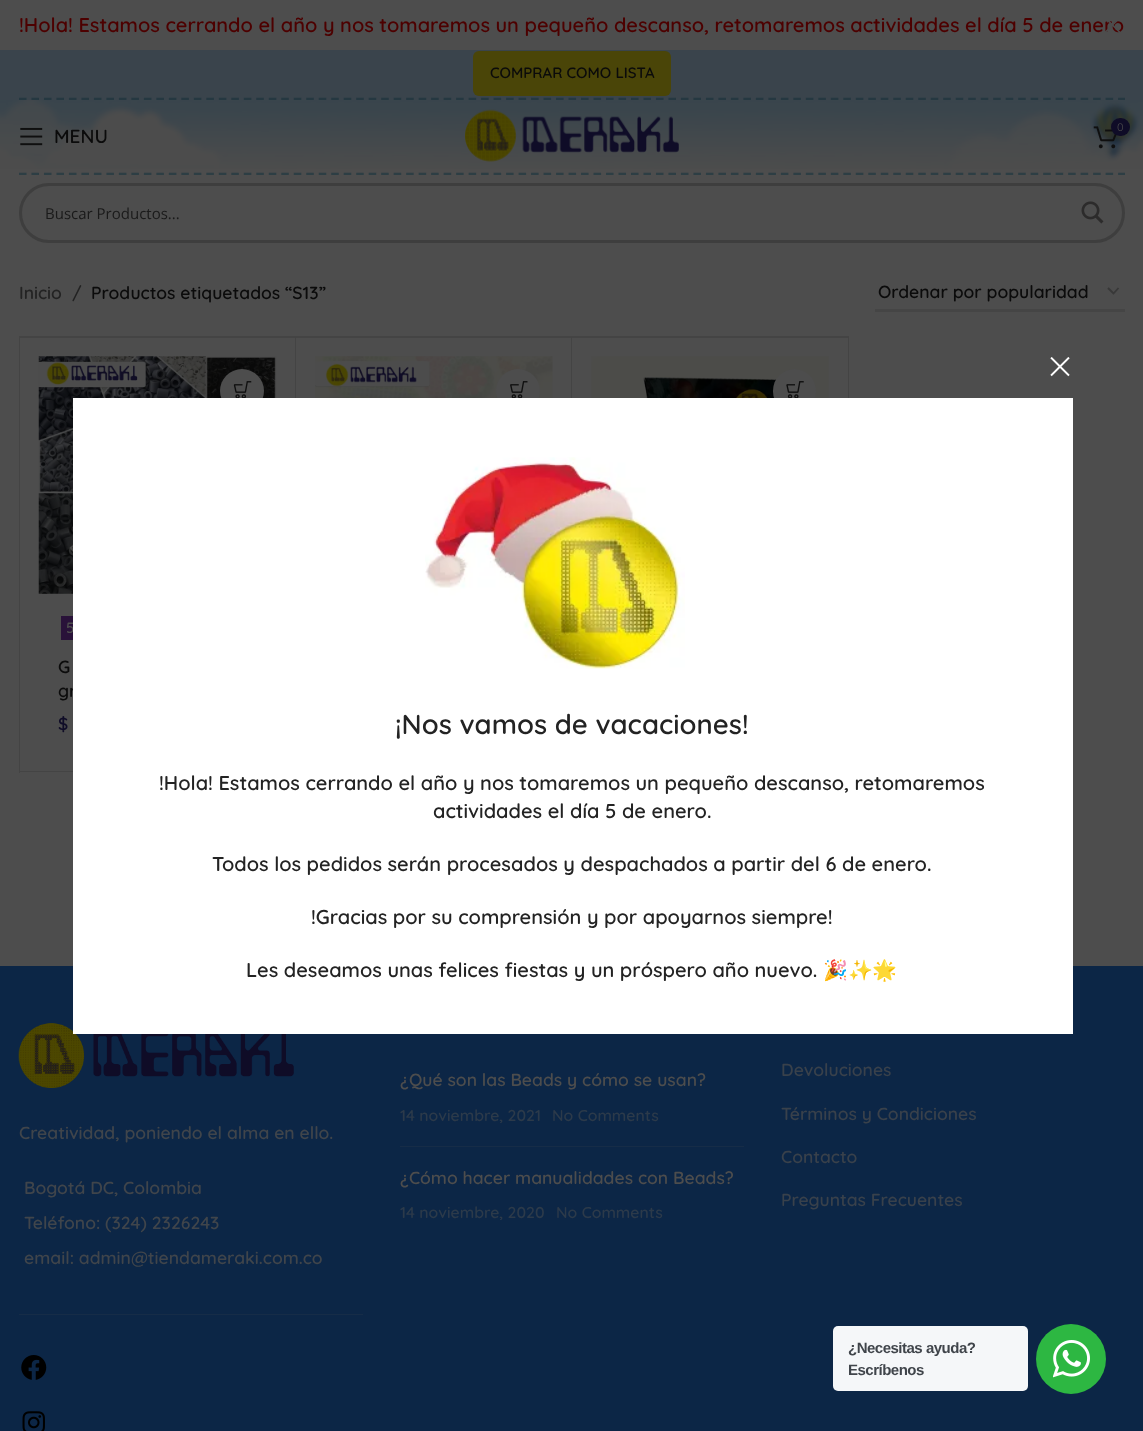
async function draw(canvas) {
  canvas.width = 1143;
  canvas.height = 1431;
  const ctx = canvas.getContext('2d');
  ctx.miterLimit = 4;
  ctx.fontKerning = 'normal';
  function label(s, x, y, font, color) {
    ctx.font = font;
    ctx.fillStyle = color;
    ctx.fillText(s, x, y);
  }
  function rect(x, y, w, h, color) {
    ctx.fillStyle = color;
    ctx.fillRect(x, y, w, h);
  }
  function roundedRect(x, y, w, h, r, color) {
    ctx.fillStyle = color;
    ctx.beginPath();
    ctx.roundRect(x, y, w, h, r);
    ctx.fill();
  }
  async function image(src, x, y, w, h) {
    const img = new Image();
    img.src = src;
    await img.decode();
    ctx.drawImage(img, x, y, w, h);
  }
  let path;

  rect(0, 0, 1143, 1431, '#4d4d4d');
  label('!Hola! Estamos cerrando el año y nos tomaremos un pequeño descanso, retomaremos actividades el día 5 de enero', 19, 32, '600 20px Quicksand', '#4d0000');
  await image('assets/img1.png', 1105, 21, 16, 12);
  rect(0, 50, 1143, 50, '#3a444c');
  path = new Path2D('M19 99H1125');
  ctx.strokeStyle = '#253841';
  ctx.lineWidth = 2.5;
  ctx.setLineDash([7.5, 4.99]);
  ctx.stroke(path);
  roundedRect(473, 51, 198, 45, 6, '#4a4508');
  label('COMPRAR COMO LISTA', 490, 78, '600 15px Quicksand', '#0b0b0b');
  await image('assets/img2.png', 0, 100, 1143, 69);
  path = new Path2D('M19 174H1125');
  ctx.strokeStyle = '#2d3e44';
  ctx.stroke(path);
  await image('assets/img3.png', 465, 109, 214, 53);
  await image('assets/img4.png', 1093, 126, 24, 23);
  roundedRect(1111, 118, 19, 18, 9, '#0f0c27');
  label('0', 1117, 131, '11px Quicksand', '#4d4d4d');
  await image('assets/img5.png', 20, 127, 23, 19);
  label('MENU', 54, 143, '600 19px Quicksand', '#0b0b0b');
  rect(19, 175, 1106, 1, '#4d4d4d');
  ctx.beginPath();
  ctx.roundRect(20.5, 184.5, 1103, 57, 28.5);
  ctx.strokeStyle = '#3e3e3e';
  ctx.lineWidth = 3;
  ctx.setLineDash([]);
  ctx.stroke();
  label('Buscar Productos...', 45, 219, '15px Open Sans', '#1a1a1a');
  await image('assets/img6.png', 1081, 201, 23, 23);
  label('Inicio', 19, 299, '600 17.5px Quicksand', '#232323');
  label('/', 72, 299, '600 17.5px Quicksand', '#232323');
  label('Productos etiquetados “S13”', 91, 299, '600 17.5px Quicksand', '#0b0b0b');
  path = new Path2D('M1108 288L1113.5 293.5L1118.5 288');
  ctx.strokeStyle = '#383838';
  ctx.lineWidth = 1.8;
  ctx.stroke(path);
  rect(875, 309, 250, 3, '#454545');
  label('Ordenar por popularidad', 878, 298, '600 17.5px Quicksand', '#0b0b0b');
  rect(19, 336, 1, 437, '#444');
  path = new Path2D('M20 336H296L295 338H20Z');
  ctx.fill(path);
  ctx.fillStyle = '#0000001c';
  path = new Path2D('M296 336V772L295 771V338Z');
  ctx.fill(path);
  path = new Path2D('M296 772H20V771H295Z');
  ctx.fill(path);
  await image('assets/img7.png', 38, 356, 239, 238);
  ctx.fillStyle = '#4d4d4d';
  ctx.beginPath();
  ctx.arc(242, 391, 22, 0, 2 * Math.PI);
  ctx.fill();
  await image('assets/img8.png', 233, 381, 19, 17);
  rect(61, 616, 12, 24, '#291239');
  label('5', 66, 633, '600 15px Quicksand', '#4d4d4d');
  label('G', 58, 673, '600 17.5px Quicksand', '#0b0b0b');
  label('gr', 58, 697, '600 17.5px Quicksand', '#0b0b0b');
  label('$', 58, 730, '600 17.5px Quicksand', '#0f0c27');
  ctx.fillStyle = '#444';
  path = new Path2D('M296 336H572L571 338H296Z');
  ctx.fill(path);
  ctx.fillStyle = '#0000001c';
  path = new Path2D('M572 336V772L571 771V338Z');
  ctx.fill(path);
  await image('assets/img9.png', 315, 356, 238, 42);
  ctx.fillStyle = '#4d4d4d';
  ctx.beginPath();
  ctx.arc(518, 391, 22, 0, 2 * Math.PI);
  ctx.fill();
  await image('assets/img10.png', 510, 381, 18, 17);
  ctx.fillStyle = '#444';
  path = new Path2D('M572 336H849L848 338H572Z');
  ctx.fill(path);
  ctx.fillStyle = '#0000001c';
  path = new Path2D('M849 336V772L848 771V338Z');
  ctx.fill(path);
  await image('assets/img11.png', 591, 356, 238, 42);
  roundedRect(773, 369, 43, 44, 21.5, '#4d4d4d');
  await image('assets/img12.png', 786, 381, 18, 17);
  rect(0, 966, 1143, 465, '#0c2646');
  rect(19, 1314, 344, 1, '#162c47');
  await image('assets/img13.png', 18, 1023, 276, 65);
  label('Creatividad, poniendo el alma en ello.', 19, 1139, '600 17.5px Quicksand', '#40454b');
  label('Bogotá DC, Colombia', 24, 1194, '600 17.5px Quicksand', '#40454b');
  label('Teléfono: (324) 2326243', 24, 1229, '600 17.5px Quicksand', '#40454b');
  label('email: admin@tiendameraki.com.co', 24, 1264, '600 17.5px Quicksand', '#40454b');
  await image('assets/img14.png', 21, 1355, 26, 25);
  await image('assets/img15.png', 22, 1411, 23, 20);
  rect(400, 1146, 344, 1, '#162c47');
  label('¿Qué son las Beads y cómo se usan?', 400, 1086, '600 17.5px Quicksand', '#4d4d4d');
  label('14 noviembre, 2021', 400, 1121, '600 15.75px Quicksand', '#2c3a4a');
  label('No Comments', 552, 1121, '600 15.75px Quicksand', '#2c3a4a');
  label('¿Cómo hacer manualidades con Beads?', 400, 1184, '600 17.5px Quicksand', '#4d4d4d');
  label('14 noviembre, 2020', 400, 1218, '600 15.75px Quicksand', '#2c3a4a');
  label('No Comments', 556, 1218, '600 15.75px Quicksand', '#2c3a4a');
  label('Devoluciones', 781, 1076, '600 17.5px Quicksand', '#39414b');
  label('Términos y Condiciones', 781, 1120, '600 17.5px Quicksand', '#39414b');
  label('Contacto', 781, 1163, '600 17.5px Quicksand', '#39414b');
  label('Preguntas Frecuentes', 781, 1206, '600 17.5px Quicksand', '#39414b');
  await image('assets/img16.png', 1050, 357, 20, 20);
  rect(73, 398, 1000, 636, '#fff');
  await image('assets/img17.png', 425, 457, 260, 212);
  label('¡Nos vamos de vacaciones!', 395, 734, '600 27.5px Quicksand', '#232323');
  label('!Hola! Estamos cerrando el año y nos tomaremos un pequeño descanso, retomaremos', 159, 790, '600 20px Quicksand', '#232323');
  label('actividades el día 5 de enero.', 433, 818, '600 20px Quicksand', '#232323');
  label('Todos los pedidos serán procesados y despachados a partir del 6 de enero.', 212, 871, '600 20px Quicksand', '#232323');
  label('!Gracias por su comprensión y por apoyarnos siempre!', 311, 924, '600 20px Quicksand', '#232323');
  label('Les deseamos unas felices fiestas y un próspero año nuevo.', 246, 977, '600 20px Quicksand', '#232323');
  label('🎉✨🌟', 823, 977, 'bold 20px Noto Color Emoji', '#232323');
  roundedRect(833, 1326, 195, 65, 5, '#f5f7f9');
  ctx.letterSpacing = '-0.5px';
  label('¿Necesitas ayuda?', 848, 1353, 'bold 15px Liberation Sans', '#40454b');
  label('Escríbenos', 848, 1375, 'bold 15px Liberation Sans', '#40454b');
  ctx.fillStyle = '#2db742';
  ctx.beginPath();
  ctx.arc(1071, 1359, 35, 0, 2 * Math.PI);
  ctx.fill();
  await image('assets/img18.png', 1053, 1340, 37, 38);
}

draw(document.querySelector('canvas'));
